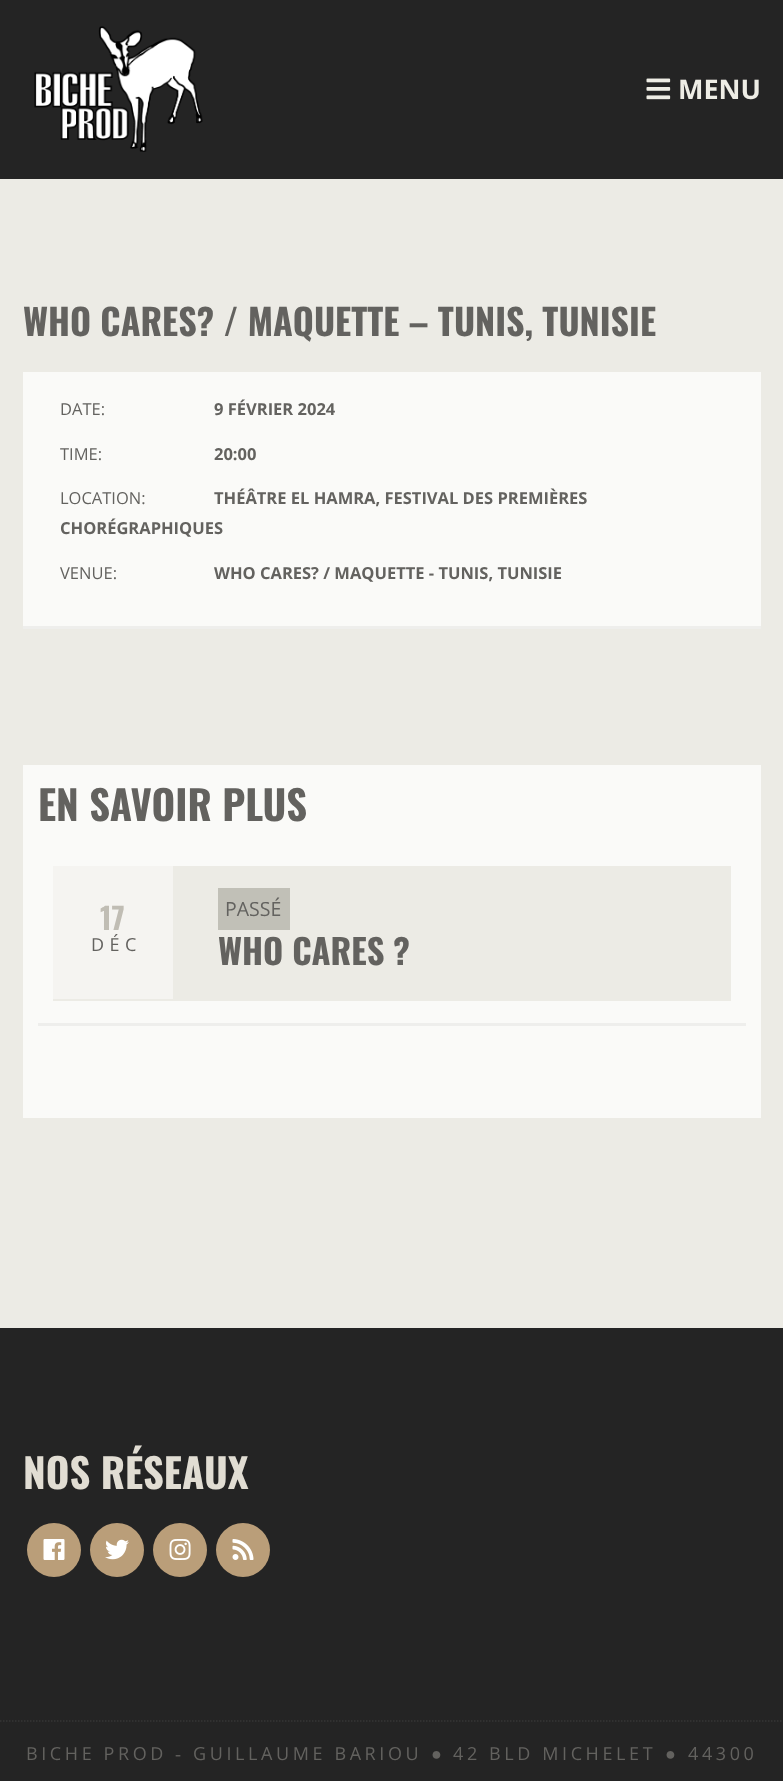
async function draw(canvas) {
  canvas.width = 783;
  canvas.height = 1781;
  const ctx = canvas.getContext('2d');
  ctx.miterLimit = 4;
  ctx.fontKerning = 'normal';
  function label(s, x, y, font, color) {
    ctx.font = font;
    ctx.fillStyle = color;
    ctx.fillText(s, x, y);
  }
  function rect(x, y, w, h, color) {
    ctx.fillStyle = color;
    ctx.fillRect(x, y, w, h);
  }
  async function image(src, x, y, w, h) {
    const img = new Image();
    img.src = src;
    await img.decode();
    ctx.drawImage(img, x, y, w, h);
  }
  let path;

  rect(0, 0, 783, 1781, '#ecebe5');
  rect(0, 0, 783, 179, '#242424');
  await image('assets/img1.png', 34, 26, 169, 126);
  await image('assets/img2.png', 646, 78, 25, 22);
  label('MENU', 678, 99, 'bold 27px Open Sans', '#eeede5');
  label('WHO CARES? / MAQUETTE – TUNIS, TUNISIE', 23, 336, 'bold 36px Oswald', '#63625f');
  rect(23, 372, 738, 254, '#fafaf8');
  rect(23, 626, 738, 3, '#eeeeec');
  label('DATE:', 60, 415, '16.5px Open Sans', '#63625f');
  label('9 FÉVRIER 2024', 214, 415, 'bold 16.5px Open Sans', '#63625f');
  label('TIME:', 60, 460, '16.5px Open Sans', '#63625f');
  label('20:00', 214, 460, 'bold 16.5px Open Sans', '#63625f');
  label('LOCATION:', 60, 504, '16.5px Open Sans', '#63625f');
  label('THÉÂTRE EL HAMRA, FESTIVAL DES PREMIÈRES', 214, 504, 'bold 16.5px Open Sans', '#63625f');
  label('CHORÉGRAPHIQUES', 60, 534, 'bold 16.5px Open Sans', '#63625f');
  label('VENUE:', 60, 579, '16.5px Open Sans', '#63625f');
  label('WHO CARES? / MAQUETTE - TUNIS, TUNISIE', 214, 579, 'bold 16.5px Open Sans', '#63625f');
  rect(23, 765, 738, 353, '#fafaf8');
  label('EN SAVOIR PLUS', 38, 821, 'bold 40.5px Oswald', '#63625f');
  rect(38, 1023, 708, 3, '#eeeeec');
  rect(53, 866, 678, 135, '#ecebe5');
  rect(53, 866, 120, 133, '#f5f4f1');
  label('17', 100, 930, 'bold 30px Oswald', '#c0bdb4');
  ctx.letterSpacing = '5.5px';
  label('DÉC', 91, 951, '18px Open Sans', '#63625f');
  rect(218, 888, 72, 42, '#c1c0b7');
  ctx.letterSpacing = '0px';
  label('PASSÉ', 225, 916, '19.5px Open Sans', '#63625f');
  label('WHO CARES ?', 218, 965, 'bold 34.5px Oswald', '#63625f');
  rect(0, 1328, 783, 453, '#242424');
  label('NOS RÉSEAUX', 23, 1489, 'bold 40.5px Oswald', '#e1ddd3');
  ctx.fillStyle = '#ba9e79';
  ctx.beginPath();
  ctx.arc(54, 1550, 27, 0, 2 * Math.PI);
  ctx.fill();
  await image('assets/img3.png', 43, 1539, 22, 21);
  ctx.beginPath();
  ctx.arc(117, 1550, 27, 0, 2 * Math.PI);
  ctx.fill();
  await image('assets/img4.png', 105, 1539, 24, 21);
  ctx.beginPath();
  ctx.arc(180, 1550, 27, 0, 2 * Math.PI);
  ctx.fill();
  await image('assets/img5.png', 169, 1539, 22, 21);
  ctx.beginPath();
  ctx.arc(243, 1550, 27, 0, 2 * Math.PI);
  ctx.fill();
  await image('assets/img6.png', 232, 1539, 22, 21);
  path = new Path2D('M0 1721H783');
  ctx.strokeStyle = '#363636';
  ctx.lineWidth = 1.5;
  ctx.setLineDash([1.5, 1.5]);
  ctx.stroke(path);
  ctx.letterSpacing = '3.6px';
  label('BICHE PROD', 26, 1760, '18px Open Sans', '#63625f');
  label('-', 175, 1760, '18px Liberation Serif', '#63625f');
  label('GUILLAUME BARIOU', 193, 1760, '18px Open Sans', '#63625f');
  label('●', 431, 1760, '18px Liberation Serif', '#63625f');
  label('42 BLD MICHELET', 453, 1760, '18px Open Sans', '#63625f');
  label('●', 665, 1760, '18px Liberation Serif', '#63625f');
  label('44300', 688, 1760, '18px Open Sans', '#63625f');
}

draw(document.querySelector('canvas'));
